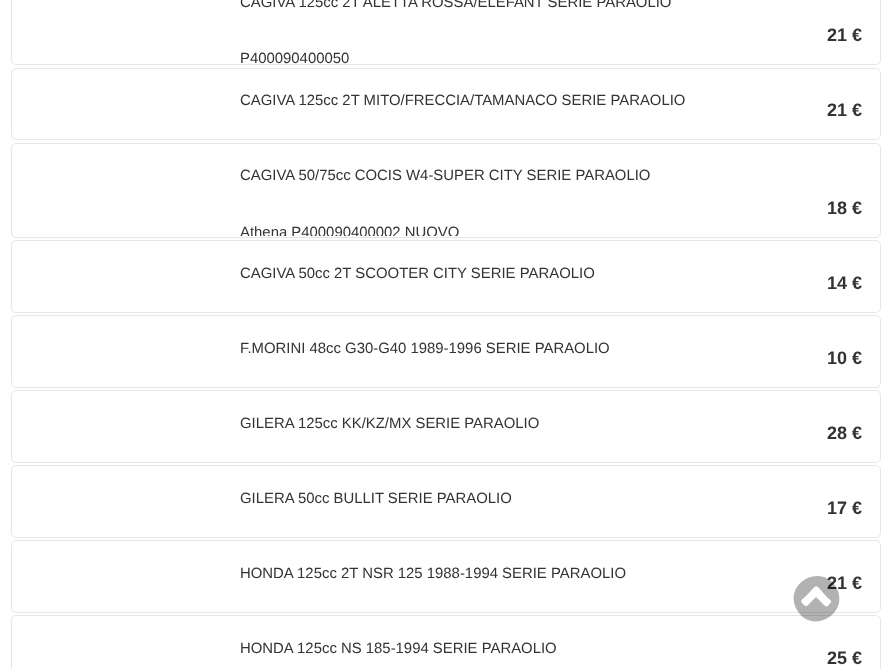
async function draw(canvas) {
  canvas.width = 891;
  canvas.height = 669;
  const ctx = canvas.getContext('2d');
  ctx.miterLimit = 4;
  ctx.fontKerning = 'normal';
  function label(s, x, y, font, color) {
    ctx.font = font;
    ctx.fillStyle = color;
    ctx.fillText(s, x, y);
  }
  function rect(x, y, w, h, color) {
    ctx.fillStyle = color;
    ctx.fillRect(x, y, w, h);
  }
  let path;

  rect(0, 0, 891, 669, '#fff');
  ctx.beginPath();
  ctx.roundRect(11.5, -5.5, 869, 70, 4.5);
  ctx.strokeStyle = '#e6e6e6';
  ctx.stroke();
  label('CAGIVA 125cc 2T ALETTA ROSSA/ELEFANT SERIE PARAOLIO', 240, 7, '14.9px Liberation Sans', '#333');
  label('P400090400050', 240, 63, '14.9px Liberation Sans', '#333');
  label('21 €', 827, 41, 'bold 18px Liberation Sans', '#333');
  ctx.beginPath();
  ctx.roundRect(11.5, 68.5, 869, 71, 4.5);
  ctx.stroke();
  label('CAGIVA 125cc 2T MITO/FRECCIA/TAMANACO SERIE PARAOLIO', 240, 105, '14.9px Liberation Sans', '#333');
  label('21 €', 827, 116, 'bold 18px Liberation Sans', '#333');
  ctx.beginPath();
  ctx.roundRect(11.5, 143.5, 869, 94, 4.5);
  ctx.stroke();
  label('CAGIVA 50/75cc COCIS W4-SUPER CITY SERIE PARAOLIO', 240, 180, '14.9px Liberation Sans', '#333');
  ctx.save();
  ctx.beginPath();
  ctx.roundRect(13, 144, 867, 92, 4);
  ctx.clip();
  label('Athena P400090400002 NUOVO', 240, 237, '14.9px Liberation Sans', '#333');
  ctx.restore();
  label('18 €', 827, 214, 'bold 18px Liberation Sans', '#333');
  ctx.beginPath();
  ctx.roundRect(11.5, 240.5, 869, 72, 4.5);
  ctx.stroke();
  label('CAGIVA 50cc 2T SCOOTER CITY SERIE PARAOLIO', 240, 278, '14.9px Liberation Sans', '#333');
  label('14 €', 827, 289, 'bold 18px Liberation Sans', '#333');
  ctx.beginPath();
  ctx.roundRect(11.5, 315.5, 869, 72, 4.5);
  ctx.stroke();
  label('F.MORINI 48cc G30-G40 1989-1996 SERIE PARAOLIO', 240, 353, '14.9px Liberation Sans', '#333');
  label('10 €', 827, 364, 'bold 18px Liberation Sans', '#333');
  ctx.beginPath();
  ctx.roundRect(11.5, 390.5, 869, 72, 4.5);
  ctx.stroke();
  label('GILERA 125cc KK/KZ/MX SERIE PARAOLIO', 240, 428, '14.9px Liberation Sans', '#333');
  label('28 €', 827, 439, 'bold 18px Liberation Sans', '#333');
  ctx.beginPath();
  ctx.roundRect(11.5, 465.5, 869, 72, 4.5);
  ctx.stroke();
  label('GILERA 50cc BULLIT SERIE PARAOLIO', 240, 503, '14.9px Liberation Sans', '#333');
  label('17 €', 827, 514, 'bold 18px Liberation Sans', '#333');
  ctx.beginPath();
  ctx.roundRect(11.5, 540.5, 869, 72, 4.5);
  ctx.stroke();
  label('HONDA 125cc 2T NSR 125 1988-1994 SERIE PARAOLIO', 240, 578, '14.9px Liberation Sans', '#333');
  label('21 €', 827, 589, 'bold 18px Liberation Sans', '#333');
  ctx.beginPath();
  ctx.roundRect(11.5, 615.5, 869, 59, 4.5);
  ctx.stroke();
  label('HONDA 125cc NS 185-1994 SERIE PARAOLIO', 240, 653, '14.9px Liberation Sans', '#333');
  label('25 €', 827, 664, 'bold 18px Liberation Sans', '#333');
  ctx.fillStyle = '#0000004d';
  path = new Path2D('M828 606C833 600 832 602 826 596C814 583 819 583 806 596C803 599 799 600 803 604C806 607 806 607 809 604L816 597L822 603C823 604 826 608 828 606ZM836 587C851 613 812 636 797 610C782 584 821 562 836 587Z');
  ctx.fill(path);
}

draw(document.querySelector('canvas'));
